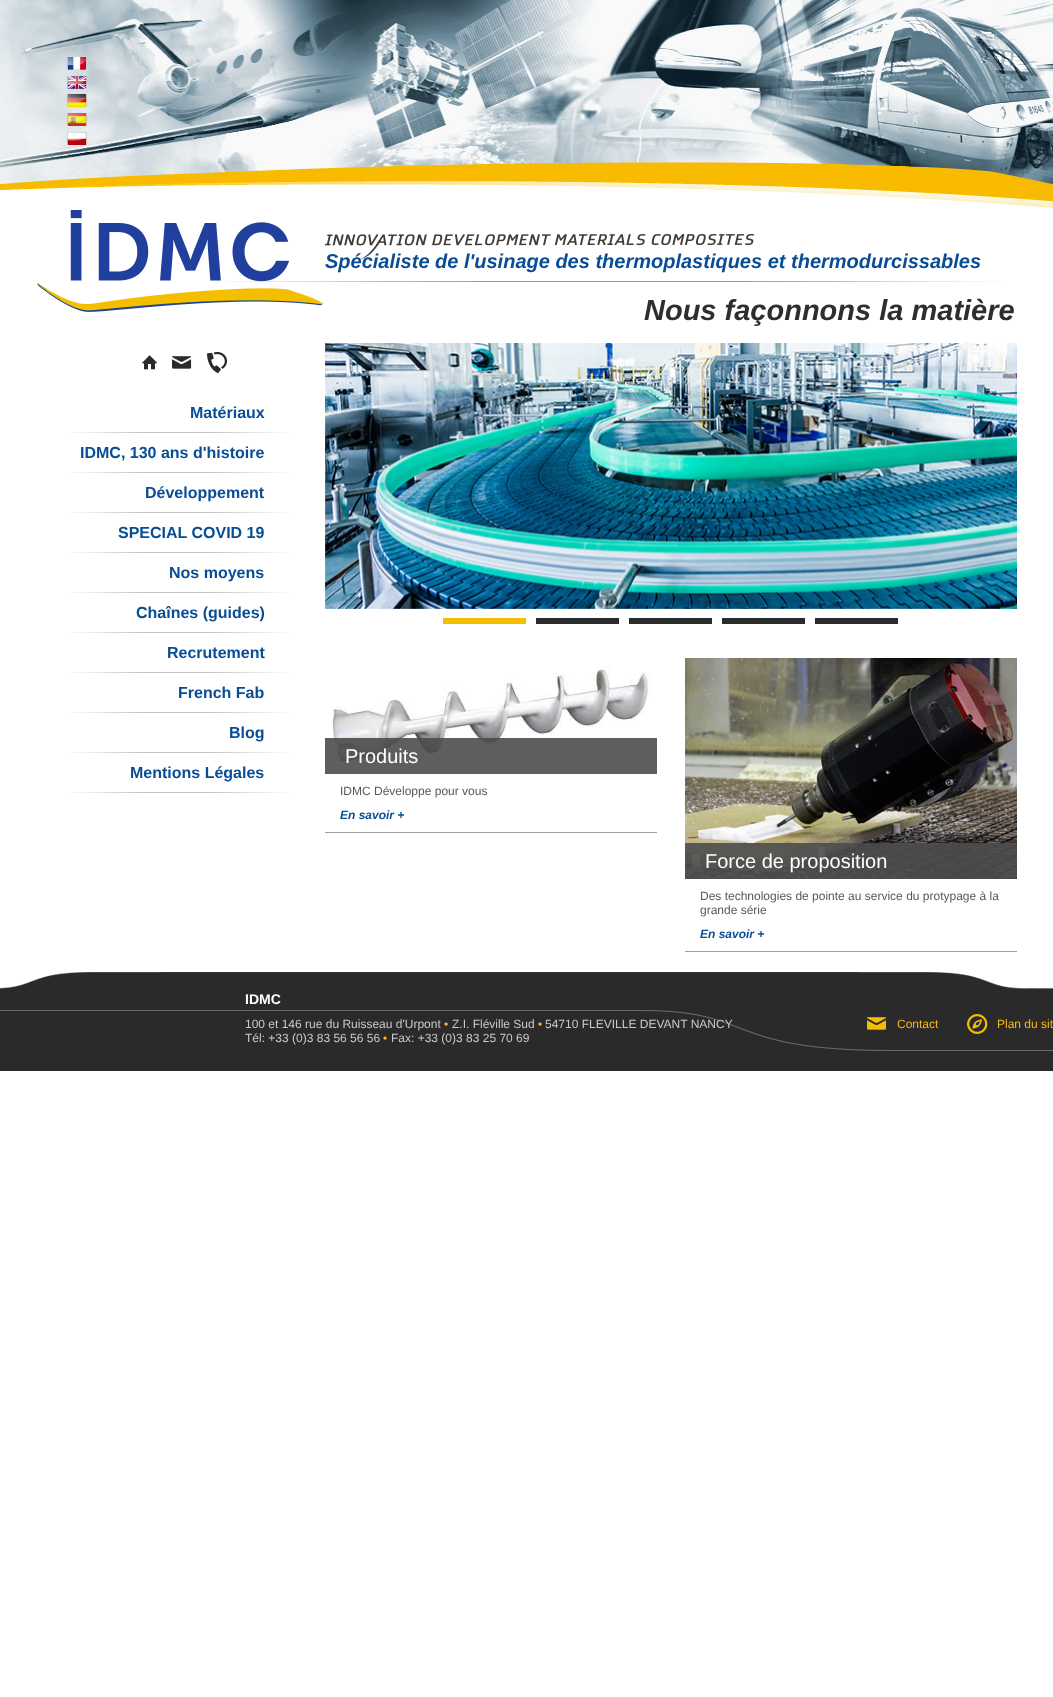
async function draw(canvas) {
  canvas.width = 1053;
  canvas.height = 1697;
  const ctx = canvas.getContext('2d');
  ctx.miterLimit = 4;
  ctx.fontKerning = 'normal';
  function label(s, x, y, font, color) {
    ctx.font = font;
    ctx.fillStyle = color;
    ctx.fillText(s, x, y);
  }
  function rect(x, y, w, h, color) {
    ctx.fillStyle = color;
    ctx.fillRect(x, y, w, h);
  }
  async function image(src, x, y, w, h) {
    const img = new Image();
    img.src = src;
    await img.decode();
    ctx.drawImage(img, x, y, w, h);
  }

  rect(0, 0, 1053, 1697, '#fff');
  await image('assets/img1.png', 0, 0, 1053, 208);
  await image('assets/img2.png', 67, 57, 20, 13);
  await image('assets/img3.png', 67, 76, 20, 13);
  await image('assets/img4.png', 67, 94, 20, 13);
  await image('assets/img5.png', 67, 112, 20, 14);
  await image('assets/img6.png', 67, 131, 20, 14);
  await image('assets/img7.png', 209, 281, 794, 1);
  await image('assets/img8.png', 37, 210, 286, 102);
  await image('assets/img9.png', 142, 355, 15, 15);
  await image('assets/img10.png', 172, 356, 20, 13);
  await image('assets/img11.png', 207, 352, 20, 21);
  await image('assets/img12.png', 67, 432, 225, 1);
  label('Matériaux', 190, 418, 'bold 16px Liberation Sans', '#084d96');
  await image('assets/img12.png', 67, 472, 225, 1);
  label('IDMC, 130 ans d\'histoire', 80, 458, 'bold 16px Liberation Sans', '#084d96');
  await image('assets/img12.png', 67, 512, 225, 1);
  label('Développement', 145, 498, 'bold 16px Liberation Sans', '#084d96');
  await image('assets/img12.png', 67, 552, 225, 1);
  label('SPECIAL COVID 19', 118, 538, 'bold 16px Liberation Sans', '#084d96');
  await image('assets/img12.png', 67, 592, 225, 1);
  label('Nos moyens', 169, 578, 'bold 16px Liberation Sans', '#084d96');
  await image('assets/img12.png', 67, 632, 225, 1);
  label('Chaînes (guides)', 136, 618, 'bold 16px Liberation Sans', '#084d96');
  await image('assets/img12.png', 67, 672, 225, 1);
  label('Recrutement', 167, 658, 'bold 16px Liberation Sans', '#084d96');
  await image('assets/img12.png', 67, 712, 225, 1);
  label('French Fab', 178, 698, 'bold 16px Liberation Sans', '#084d96');
  await image('assets/img12.png', 67, 752, 225, 1);
  label('Blog', 229, 738, 'bold 16px Liberation Sans', '#084d96');
  await image('assets/img12.png', 67, 792, 225, 1);
  label('Mentions Légales', 130, 778, 'bold 16px Liberation Sans', '#084d96');
  await image('assets/img13.png', 325, 234, 429, 25);
  label('Spécialiste de l\'usinage des thermoplastiques et thermodurcissables', 325, 268, 'italic bold 20px Liberation Sans', '#084d96');
  label('Nous façonnons la matière', 644, 320, 'italic bold 29px Liberation Sans', '#2e2e2e');
  await image('assets/img14.png', 325, 343, 692, 266);
  rect(443, 618, 83, 6, '#f3bd00');
  rect(536, 618, 83, 6, '#2a2a2a');
  rect(629, 618, 83, 6, '#2a2a2a');
  rect(722, 618, 83, 6, '#2a2a2a');
  rect(815, 618, 83, 6, '#2a2a2a');
  rect(325, 832, 332, 1, '#a2a0a0');
  await image('assets/img15.png', 332, 666, 320, 97);
  rect(325, 738, 332, 36, '#4d4d4de6');
  label('Produits', 345, 763, '20px Liberation Sans', '#fff');
  label('IDMC Développe pour vous', 340, 795, '12px Liberation Sans', '#585858');
  label('En savoir +', 340, 819, 'italic bold 12px Liberation Sans', '#084d96');
  rect(685, 951, 332, 1, '#a2a0a0');
  await image('assets/img16.png', 685, 658, 332, 221);
  rect(685, 843, 332, 36, '#4d4d4de6');
  label('Force de proposition', 705, 868, '20px Liberation Sans', '#fff');
  label('Des technologies de pointe au service du protypage à la', 700, 900, '12px Liberation Sans', '#585858');
  label('grande série', 700, 914, '12px Liberation Sans', '#585858');
  label('En savoir +', 700, 938, 'italic bold 12px Liberation Sans', '#084d96');
  await image('assets/img17.png', 0, 972, 1053, 99);
  label('IDMC', 245, 1004, 'bold 14px Liberation Sans', '#fff');
  label('100 et 146 rue du Ruisseau d\'Urpont', 245, 1028, '12px Liberation Sans', '#cacaca');
  label('•', 444, 1028, '12px Liberation Sans', '#fab914');
  label('Z.I. Fléville Sud', 452, 1028, '12px Liberation Sans', '#cacaca');
  label('•', 538, 1028, '12px Liberation Sans', '#fab914');
  label('54710 FLEVILLE DEVANT NANCY', 545, 1028, '12px Liberation Sans', '#cacaca');
  label('Tél: +33 (0)3 83 56 56 56', 245, 1042, '12px Liberation Sans', '#cacaca');
  label('•', 383, 1042, '12px Liberation Sans', '#fab914');
  label('Fax: +33 (0)3 83 25 70 69', 391, 1042, '12px Liberation Sans', '#cacaca');
  await image('assets/img18.png', 867, 1017, 19, 13);
  label('Contact', 897, 1028, '12px Liberation Sans', '#fab914');
  await image('assets/img19.png', 967, 1014, 21, 20);
  label('Plan du sit', 997, 1028, '12px Liberation Sans', '#fab914');
}

draw(document.querySelector('canvas'));
